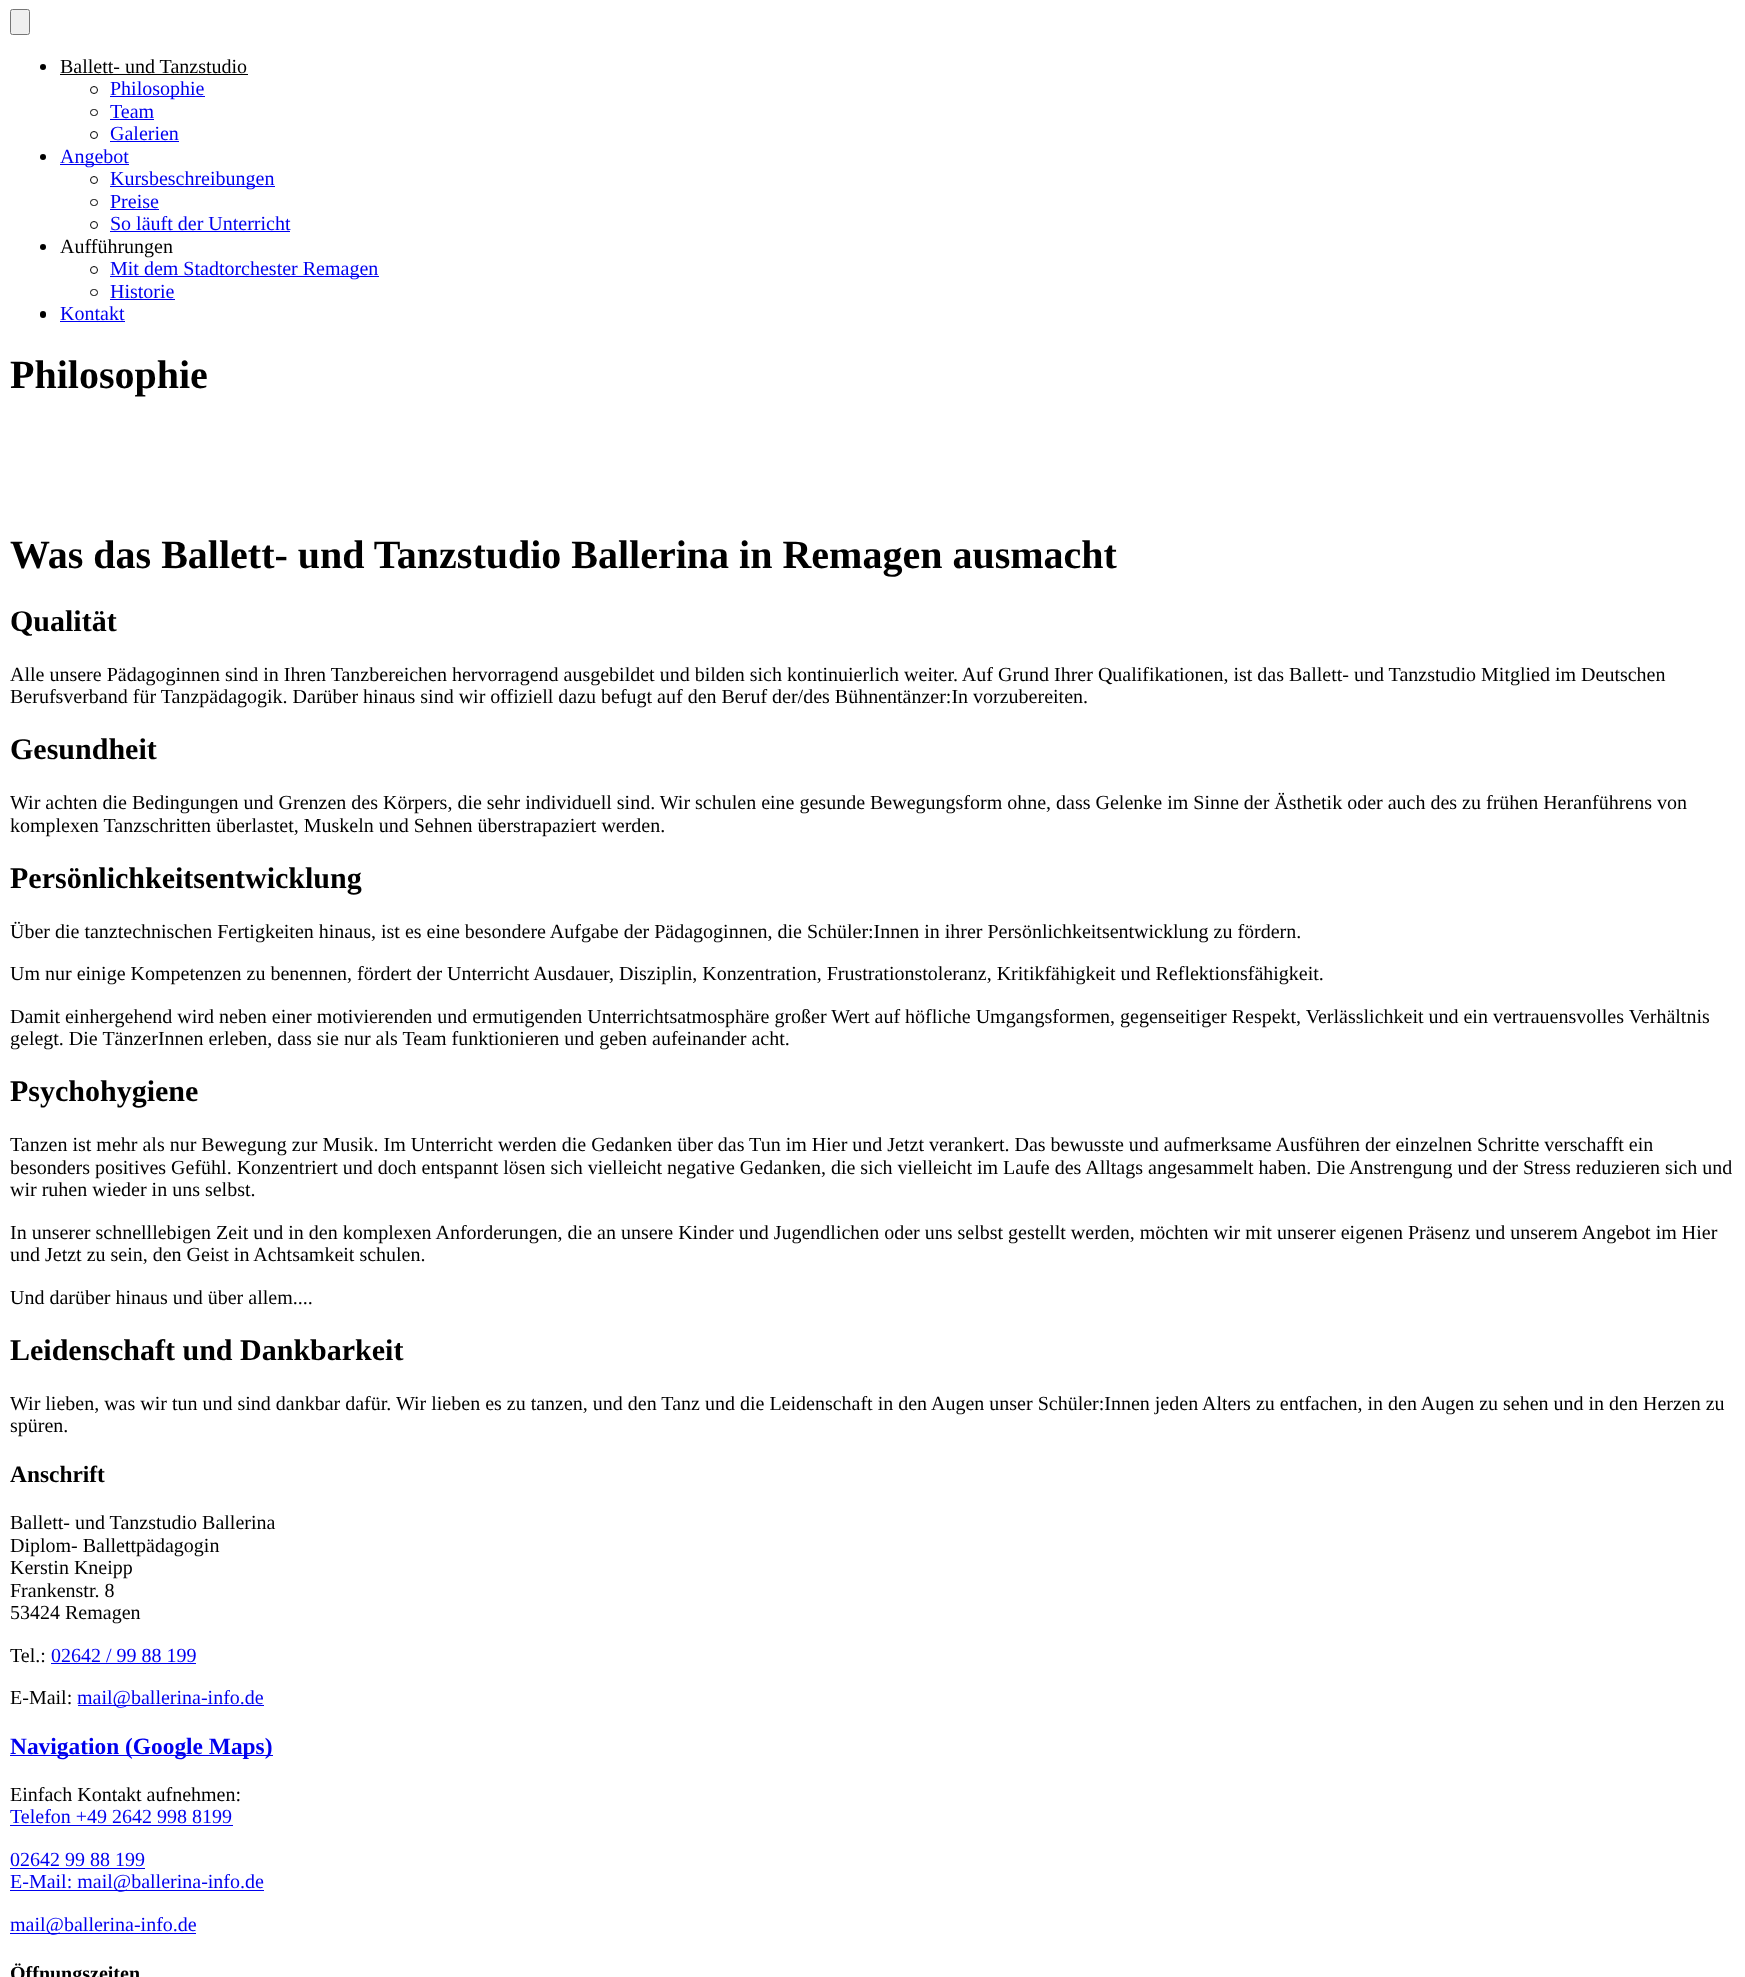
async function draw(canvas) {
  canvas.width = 1745;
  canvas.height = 1977;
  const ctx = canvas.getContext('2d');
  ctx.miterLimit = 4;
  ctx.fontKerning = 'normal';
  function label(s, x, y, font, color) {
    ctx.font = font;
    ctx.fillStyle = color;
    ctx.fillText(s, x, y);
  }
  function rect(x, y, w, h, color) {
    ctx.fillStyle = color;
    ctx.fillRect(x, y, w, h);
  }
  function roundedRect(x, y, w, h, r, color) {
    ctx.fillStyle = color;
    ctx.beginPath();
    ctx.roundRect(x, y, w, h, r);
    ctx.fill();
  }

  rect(0, 0, 1745, 1977, '#fff');
  ctx.fillStyle = '#efefef';
  ctx.beginPath();
  ctx.roundRect(10.5, 9.5, 19, 25, 2);
  ctx.fill();
  ctx.strokeStyle = '#767676';
  ctx.stroke();
  ctx.fillStyle = '#000';
  ctx.beginPath();
  ctx.arc(43, 67, 3, 0, 2 * Math.PI);
  ctx.fill();
  label('Ballett- und Tanzstudio', 60, 73, '20px Liberation Serif', '#000');
  rect(60, 74, 188, 1, '#000');
  ctx.beginPath();
  ctx.arc(94, 90, 3.5, 0, 2 * Math.PI);
  ctx.strokeStyle = '#000';
  ctx.stroke();
  rect(110, 96, 95, 1, '#00e');
  label('Philosophie', 110, 95, '20px Liberation Serif', '#00e');
  ctx.beginPath();
  ctx.roundRect(90.5, 109.5, 7, 6, 3);
  ctx.stroke();
  label('Team', 110, 118, '20px Liberation Serif', '#00e');
  rect(110, 119, 44, 1, '#00e');
  ctx.beginPath();
  ctx.arc(94, 135, 3.5, 0, 2 * Math.PI);
  ctx.stroke();
  label('Galerien', 110, 140, '20px Liberation Serif', '#00e');
  rect(110, 141, 69, 1, '#00e');
  ctx.fillStyle = '#000';
  ctx.beginPath();
  ctx.arc(43, 157, 3, 0, 2 * Math.PI);
  ctx.fill();
  rect(60, 164, 69, 1, '#00e');
  label('Angebot', 60, 163, '20px Liberation Serif', '#00e');
  ctx.beginPath();
  ctx.arc(94, 180, 3.5, 0, 2 * Math.PI);
  ctx.stroke();
  rect(110, 186, 165, 1, '#00e');
  label('Kursbeschreibungen', 110, 185, '20px Liberation Serif', '#00e');
  ctx.beginPath();
  ctx.roundRect(90.5, 199.5, 7, 6, 3);
  ctx.stroke();
  label('Preise', 110, 208, '20px Liberation Serif', '#00e');
  rect(110, 209, 49, 1, '#00e');
  ctx.beginPath();
  ctx.arc(94, 225, 3.5, 0, 2 * Math.PI);
  ctx.stroke();
  label('So läuft der Unterricht', 110, 230, '20px Liberation Serif', '#00e');
  rect(110, 231, 180, 1, '#00e');
  ctx.fillStyle = '#000';
  ctx.beginPath();
  ctx.arc(43, 247, 3, 0, 2 * Math.PI);
  ctx.fill();
  label('Aufführungen', 60, 253, '20px Liberation Serif', '#000');
  ctx.beginPath();
  ctx.arc(94, 270, 3.5, 0, 2 * Math.PI);
  ctx.stroke();
  rect(110, 276, 269, 1, '#00e');
  label('Mit dem Stadtorchester Remagen', 110, 275, '20px Liberation Serif', '#00e');
  ctx.beginPath();
  ctx.roundRect(90.5, 289.5, 7, 6, 3);
  ctx.stroke();
  label('Historie', 110, 298, '20px Liberation Serif', '#00e');
  rect(110, 299, 65, 1, '#00e');
  roundedRect(40, 311, 6, 7, 3, '#000');
  label('Kontakt', 60, 320, '20px Liberation Serif', '#00e');
  rect(60, 321, 65, 1, '#00e');
  label('Philosophie', 10, 388, 'bold 40px Liberation Serif', '#000');
  label('Was das Ballett- und Tanzstudio Ballerina in Remagen ausmacht', 10, 568, 'bold 40px Liberation Serif', '#000');
  label('Qualität', 10, 631, 'bold 30px Liberation Serif', '#000');
  label('Alle unsere Pädagoginnen sind in Ihren Tanzbereichen hervorragend ausgebildet und bilden sich kontinuierlich weiter. Auf Grund Ihrer Qualifikationen, ist das Ballett- und Tanzstudio Mitglied im Deutschen', 10, 681, '20px Liberation Serif', '#000');
  label('Berufsverband für Tanzpädagogik. Darüber hinaus sind wir offiziell dazu befugt auf den Beruf der/des Bühnentänzer:In vorzubereiten.', 10, 703, '20px Liberation Serif', '#000');
  label('Gesundheit', 10, 759, 'bold 30px Liberation Serif', '#000');
  label('Wir achten die Bedingungen und Grenzen des Körpers, die sehr individuell sind. Wir schulen eine gesunde Bewegungsform ohne, dass Gelenke im Sinne der Ästhetik oder auch des zu frühen Heranführens von', 10, 809, '20px Liberation Serif', '#000');
  label('komplexen Tanzschritten überlastet, Muskeln und Sehnen überstrapaziert werden.', 10, 832, '20px Liberation Serif', '#000');
  label('Persönlichkeitsentwicklung', 10, 888, 'bold 30px Liberation Serif', '#000');
  label('Über die tanztechnischen Fertigkeiten hinaus, ist es eine besondere Aufgabe der Pädagoginnen, die Schüler:Innen in ihrer Persönlichkeitsentwicklung zu fördern.', 10, 938, '20px Liberation Serif', '#000');
  label('Um nur einige Kompetenzen zu benennen, fördert der Unterricht Ausdauer, Disziplin, Konzentration, Frustrationstoleranz, Kritikfähigkeit und Reflektionsfähigkeit.', 10, 980, '20px Liberation Serif', '#000');
  label('Damit einhergehend wird neben einer motivierenden und ermutigenden Unterrichtsatmosphäre großer Wert auf höfliche Umgangsformen, gegenseitiger Respekt, Verlässlichkeit und ein vertrauensvolles Verhältnis', 10, 1023, '20px Liberation Serif', '#000');
  label('gelegt. Die TänzerInnen erleben, dass sie nur als Team funktionieren und geben aufeinander acht.', 10, 1045, '20px Liberation Serif', '#000');
  label('Psychohygiene', 10, 1101, 'bold 30px Liberation Serif', '#000');
  label('Tanzen ist mehr als nur Bewegung zur Musik. Im Unterricht werden die Gedanken über das Tun im Hier und Jetzt verankert. Das bewusste und aufmerksame Ausführen der einzelnen Schritte verschafft ein', 10, 1151, '20px Liberation Serif', '#000');
  label('besonders positives Gefühl. Konzentriert und doch entspannt lösen sich vielleicht negative Gedanken, die sich vielleicht im Laufe des Alltags angesammelt haben. Die Anstrengung und der Stress reduzieren sich und', 10, 1174, '20px Liberation Serif', '#000');
  label('wir ruhen wieder in uns selbst.', 10, 1196, '20px Liberation Serif', '#000');
  label('In unserer schnelllebigen Zeit und in den komplexen Anforderungen, die an unsere Kinder und Jugendlichen oder uns selbst gestellt werden, möchten wir mit unserer eigenen Präsenz und unserem Angebot im Hier', 10, 1239, '20px Liberation Serif', '#000');
  label('und Jetzt zu sein, den Geist in Achtsamkeit schulen.', 10, 1261, '20px Liberation Serif', '#000');
  label('Und darüber hinaus und über allem....', 10, 1304, '20px Liberation Serif', '#000');
  label('Leidenschaft und Dankbarkeit', 10, 1360, 'bold 30px Liberation Serif', '#000');
  label('Wir lieben, was wir tun und sind dankbar dafür. Wir lieben es zu tanzen, und den Tanz und die Leidenschaft in den Augen unser Schüler:Innen jeden Alters zu entfachen, in den Augen zu sehen und in den Herzen zu', 10, 1410, '20px Liberation Serif', '#000');
  label('spüren.', 10, 1432, '20px Liberation Serif', '#000');
  label('Anschrift', 10, 1482, 'bold 23.4px Liberation Serif', '#000');
  label('Ballett- und Tanzstudio Ballerina', 10, 1529, '20px Liberation Serif', '#000');
  label('Diplom- Ballettpädagogin', 10, 1552, '20px Liberation Serif', '#000');
  label('Kerstin Kneipp', 10, 1574, '20px Liberation Serif', '#000');
  label('Frankenstr. 8', 10, 1597, '20px Liberation Serif', '#000');
  label('53424 Remagen', 10, 1619, '20px Liberation Serif', '#000');
  label('Tel.:', 10, 1662, '20px Liberation Serif', '#000');
  label('02642 / 99 88 199', 51, 1662, '20px Liberation Serif', '#00e');
  rect(51, 1663, 145, 1, '#00e');
  label('E-Mail:', 10, 1704, '20px Liberation Serif', '#000');
  rect(78, 1705, 186, 1, '#00e');
  label('mail@ballerina-info.de', 77, 1704, '20px Liberation Serif', '#00e');
  rect(10, 1755, 263, 1, '#00e');
  label('Navigation (Google Maps)', 10, 1754, 'bold 23.4px Liberation Serif', '#00e');
  label('Einfach Kontakt aufnehmen:', 10, 1801, '20px Liberation Serif', '#000');
  label('Telefon +49 2642 998 8199', 10, 1823, '20px Liberation Serif', '#00e');
  rect(10, 1825, 223, 1, '#00e');
  label('02642 99 88 199', 10, 1866, '20px Liberation Serif', '#00e');
  rect(10, 1868, 135, 1, '#00e');
  rect(10, 1890, 254, 1, '#00e');
  label('E-Mail: mail@ballerina-info.de', 10, 1888, '20px Liberation Serif', '#00e');
  rect(10, 1933, 186, 1, '#00e');
  label('mail@ballerina-info.de', 10, 1931, '20px Liberation Serif', '#00e');
  label('Öffnungszeiten', 10, 1980, 'bold 20px Liberation Serif', '#000');
}

draw(document.querySelector('canvas'));
